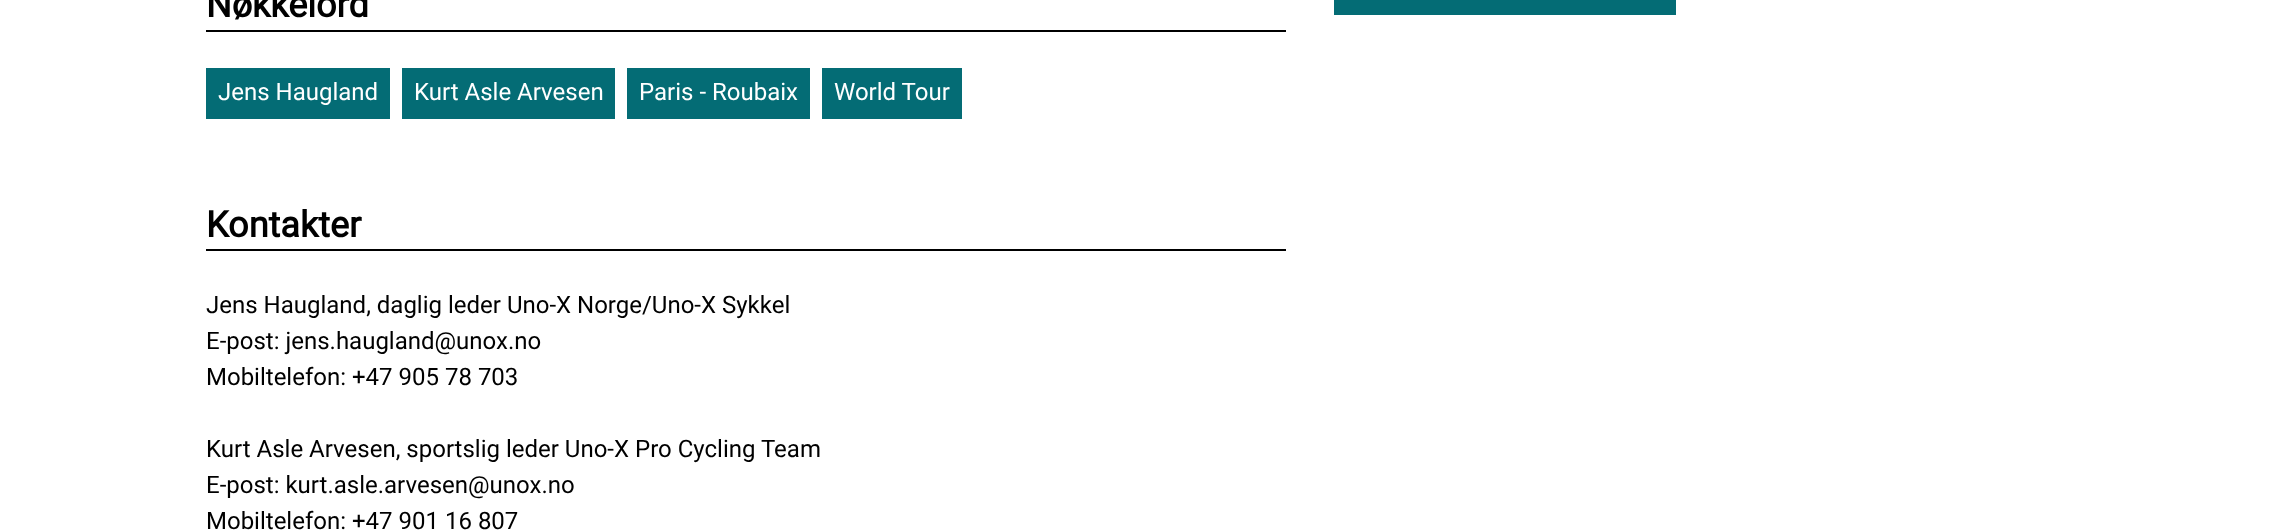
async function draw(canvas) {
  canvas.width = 2282;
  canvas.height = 531;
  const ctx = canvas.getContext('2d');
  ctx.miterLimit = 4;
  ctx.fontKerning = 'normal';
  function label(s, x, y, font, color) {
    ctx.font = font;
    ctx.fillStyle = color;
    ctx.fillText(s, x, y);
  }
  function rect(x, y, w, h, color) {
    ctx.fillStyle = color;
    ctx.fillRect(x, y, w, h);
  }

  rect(0, 0, 2282, 531, '#fff');
  rect(206, 30, 1080, 2, '#000');
  label('Nøkkelord', 206, 17, 'bold 36px Roboto', '#000');
  rect(206, 68, 184, 51, '#046c75');
  label('Jens Haugland', 218, 100, '24px Roboto', '#fff');
  rect(402, 68, 213, 51, '#046c75');
  label('Kurt Asle Arvesen', 414, 100, '24px Roboto', '#fff');
  rect(627, 68, 183, 51, '#046c75');
  label('Paris - Roubaix', 639, 100, '24px Roboto', '#fff');
  rect(822, 68, 140, 51, '#046c75');
  label('World Tour', 834, 100, '24px Roboto', '#fff');
  rect(206, 249, 1080, 2, '#000');
  label('Kontakter', 206, 237, 'bold 36px Roboto', '#000');
  label('Jens Haugland, daglig leder Uno-X Norge/Uno-X Sykkel', 206, 313, '24px Roboto', '#000');
  label('E-post: jens.haugland@unox.no', 206, 349, '24px Roboto', '#000');
  label('Mobiltelefon: +47 905 78 703', 206, 385, '24px Roboto', '#000');
  label('Kurt Asle Arvesen, sportslig leder Uno-X Pro Cycling Team', 206, 457, '24px Roboto', '#000');
  label('E-post: kurt.asle.arvesen@unox.no', 206, 493, '24px Roboto', '#000');
  label('Mobiltelefon: +47 901 16 807', 206, 529, '24px Roboto', '#000');
  rect(1334, 0, 342, 15, '#046c75');
}

draw(document.querySelector('canvas'));
